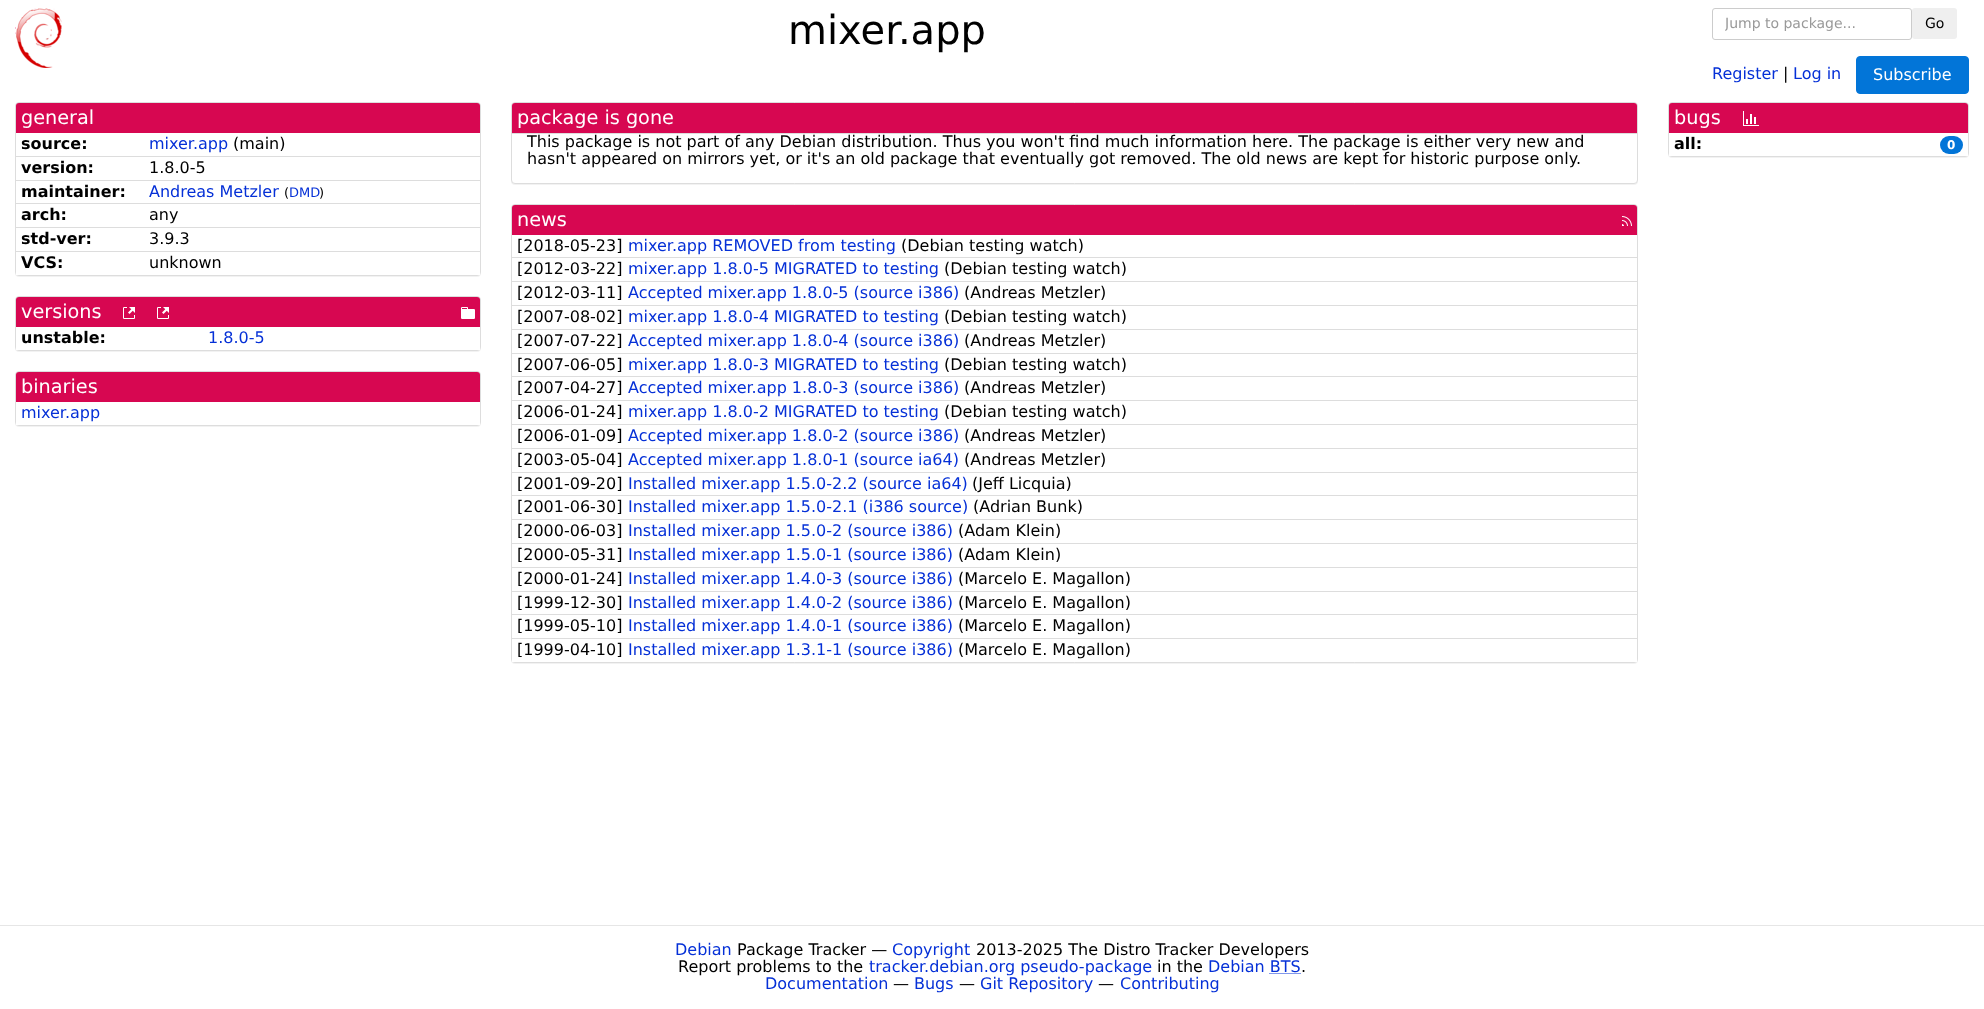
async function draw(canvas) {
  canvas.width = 1984;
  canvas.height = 1009;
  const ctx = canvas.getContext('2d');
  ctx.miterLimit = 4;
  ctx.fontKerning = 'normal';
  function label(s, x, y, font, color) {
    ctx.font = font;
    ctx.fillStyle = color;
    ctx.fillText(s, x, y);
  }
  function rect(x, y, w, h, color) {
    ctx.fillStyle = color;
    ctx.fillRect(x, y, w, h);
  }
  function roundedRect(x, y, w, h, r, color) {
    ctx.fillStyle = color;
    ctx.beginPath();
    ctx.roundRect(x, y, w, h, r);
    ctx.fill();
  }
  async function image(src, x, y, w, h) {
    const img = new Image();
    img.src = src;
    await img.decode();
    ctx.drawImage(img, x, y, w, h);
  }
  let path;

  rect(0, 0, 1984, 1009, '#fff');
  await image('assets/img1.png', 15, 8, 47, 60);
  label('mixer.app', 788, 44, '40px DejaVu Sans', '#000');
  ctx.beginPath();
  ctx.roundRect(1712.5, 8.5, 199, 31, 2.5);
  ctx.strokeStyle = '#ccc';
  ctx.stroke();
  ctx.save();
  ctx.beginPath();
  ctx.rect(1725, 15, 170, 16);
  ctx.clip();
  label('Jump to package...', 1725, 28, '14px DejaVu Sans', '#999');
  ctx.restore();
  roundedRect(1912, 8, 45, 31, 3, '#efefef');
  label('Go', 1925, 28, '14px DejaVu Sans', '#000');
  label('Register', 1712, 79, '16px DejaVu Sans', '#0530d7');
  label('|', 1783, 79, '16px DejaVu Sans', '#000');
  label('Log in', 1793, 79, '16px DejaVu Sans', '#0530d7');
  ctx.fillStyle = '#0275d8';
  ctx.beginPath();
  ctx.roundRect(1856.5, 56.5, 112, 37, 3.5);
  ctx.fill();
  ctx.strokeStyle = '#0275d8';
  ctx.stroke();
  label('Subscribe', 1873, 80, '16px DejaVu Sans', '#fff');
  ctx.fillStyle = '#0000000d';
  ctx.filter = 'blur(0.5px)';
  ctx.beginPath();
  ctx.roundRect(15, 103, 466, 174, 4);
  ctx.fill();
  ctx.filter = 'none';
  ctx.beginPath();
  ctx.roundRect(15.5, 102.5, 465, 173, 3.5);
  ctx.strokeStyle = '#ddd';
  ctx.stroke();
  ctx.fillStyle = '#d70751';
  ctx.beginPath();
  ctx.roundRect(16, 103, 464, 31, [3, 3, 0, 0]);
  ctx.fill();
  label('general', 21, 124, '19.25px DejaVu Sans', '#fff');
  rect(16, 133, 464, 142, '#fff');
  rect(16, 156, 464, 1, '#ddd');
  label('source:', 21, 149, 'bold 16px DejaVu Sans', '#000');
  label('mixer.app', 149, 149, '16px DejaVu Sans', '#0530d7');
  label('(main)', 233, 149, '16px DejaVu Sans', '#000');
  rect(16, 180, 464, 1, '#ddd');
  label('version:', 21, 173, 'bold 16px DejaVu Sans', '#000');
  label('1.8.0-5', 149, 173, '16px DejaVu Sans', '#000');
  rect(16, 203, 464, 1, '#ddd');
  label('maintainer:', 21, 197, 'bold 16px DejaVu Sans', '#000');
  label('Andreas Metzler', 149, 197, '16px DejaVu Sans', '#0530d7');
  label('(', 284, 197, '13px DejaVu Sans', '#000');
  label('DMD', 289, 197, '13px DejaVu Sans', '#0530d7');
  label(')', 319, 197, '13px DejaVu Sans', '#000');
  rect(16, 227, 464, 1, '#ddd');
  label('arch:', 21, 220, 'bold 16px DejaVu Sans', '#000');
  label('any', 149, 220, '16px DejaVu Sans', '#000');
  label('std-ver:', 21, 244, 'bold 16px DejaVu Sans', '#000');
  label('3.9.3', 149, 244, '16px DejaVu Sans', '#000');
  rect(16, 251, 464, 1, '#ddd');
  label('VCS:', 21, 268, 'bold 16px DejaVu Sans', '#000');
  label('unknown', 149, 268, '16px DejaVu Sans', '#000');
  ctx.fillStyle = '#0000000d';
  ctx.filter = 'blur(0.5px)';
  ctx.beginPath();
  ctx.roundRect(15, 297, 466, 55, 4);
  ctx.fill();
  ctx.filter = 'none';
  ctx.beginPath();
  ctx.roundRect(15.5, 296.5, 465, 54, 3.5);
  ctx.stroke();
  ctx.fillStyle = '#d70751';
  ctx.beginPath();
  ctx.roundRect(16, 297, 464, 31, [3, 3, 0, 0]);
  ctx.fill();
  label('versions', 21, 318, '19.25px DejaVu Sans', '#fff');
  await image('assets/img2.png', 123, 307, 12, 12);
  await image('assets/img2.png', 157, 307, 12, 12);
  await image('assets/img3.png', 461, 307, 14, 12);
  rect(16, 327, 464, 23, '#fff');
  label('unstable:', 21, 343, 'bold 16px DejaVu Sans', '#000');
  label('1.8.0-5', 208, 343, '16px DejaVu Sans', '#0530d7');
  ctx.fillStyle = '#0000000d';
  ctx.filter = 'blur(0.5px)';
  ctx.beginPath();
  ctx.roundRect(15, 372, 466, 55, 4);
  ctx.fill();
  ctx.filter = 'none';
  ctx.beginPath();
  ctx.roundRect(15.5, 371.5, 465, 54, 3.5);
  ctx.stroke();
  ctx.fillStyle = '#d70751';
  ctx.beginPath();
  ctx.roundRect(16, 372, 464, 31, [3, 3, 0, 0]);
  ctx.fill();
  label('binaries', 21, 393, '19.25px DejaVu Sans', '#fff');
  rect(16, 402, 464, 23, '#fff');
  label('mixer.app', 21, 418, '16px DejaVu Sans', '#0530d7');
  ctx.fillStyle = '#0000000d';
  ctx.filter = 'blur(0.5px)';
  ctx.beginPath();
  ctx.roundRect(511, 103, 1127, 82, 4);
  ctx.fill();
  ctx.filter = 'none';
  ctx.fillStyle = '#fff';
  ctx.beginPath();
  ctx.roundRect(511.5, 102.5, 1126, 81, 3.5);
  ctx.fill();
  ctx.stroke();
  ctx.fillStyle = '#d70751';
  ctx.beginPath();
  ctx.roundRect(512, 103, 1125, 31, [3, 3, 0, 0]);
  ctx.fill();
  rect(512, 133, 1125, 1, '#ddd');
  label('package is gone', 517, 124, '19.25px DejaVu Sans', '#fff');
  label('This package is not part of any Debian distribution. Thus you won\'t find much information here. The package is either very new and', 527, 147, '16px DejaVu Sans', '#000');
  label('hasn\'t appeared on mirrors yet, or it\'s an old package that eventually got removed. The old news are kept for historic purpose only.', 527, 164, '16px DejaVu Sans', '#000');
  ctx.fillStyle = '#0000000d';
  ctx.filter = 'blur(0.5px)';
  ctx.beginPath();
  ctx.roundRect(511, 205, 1127, 459, 4);
  ctx.fill();
  ctx.filter = 'none';
  ctx.beginPath();
  ctx.roundRect(511.5, 204.5, 1126, 458, 3.5);
  ctx.stroke();
  ctx.fillStyle = '#d70751';
  ctx.beginPath();
  ctx.roundRect(512, 205, 1125, 31, [3, 3, 0, 0]);
  ctx.fill();
  label('news', 517, 226, '19.25px DejaVu Sans', '#fff');
  await image('assets/img4.png', 1622, 216, 10, 10);
  rect(512, 235, 1125, 427, '#fff');
  rect(512, 257, 1125, 1, '#ddd');
  label('[2018-05-23]', 517, 251, '16px DejaVu Sans', '#000');
  label('mixer.app REMOVED from testing', 628, 251, '16px DejaVu Sans', '#0530d7');
  label('(Debian testing watch)', 901, 251, '16px DejaVu Sans', '#000');
  rect(512, 281, 1125, 1, '#ddd');
  label('[2012-03-22]', 517, 274, '16px DejaVu Sans', '#000');
  label('mixer.app 1.8.0-5 MIGRATED to testing', 628, 274, '16px DejaVu Sans', '#0530d7');
  label('(Debian testing watch)', 944, 274, '16px DejaVu Sans', '#000');
  rect(512, 305, 1125, 1, '#ddd');
  label('[2012-03-11]', 517, 298, '16px DejaVu Sans', '#000');
  label('Accepted mixer.app 1.8.0-5 (source i386)', 628, 298, '16px DejaVu Sans', '#0530d7');
  label('(Andreas Metzler)', 964, 298, '16px DejaVu Sans', '#000');
  rect(512, 329, 1125, 1, '#ddd');
  label('[2007-08-02]', 517, 322, '16px DejaVu Sans', '#000');
  label('mixer.app 1.8.0-4 MIGRATED to testing', 628, 322, '16px DejaVu Sans', '#0530d7');
  label('(Debian testing watch)', 944, 322, '16px DejaVu Sans', '#000');
  rect(512, 353, 1125, 1, '#ddd');
  label('[2007-07-22]', 517, 346, '16px DejaVu Sans', '#000');
  label('Accepted mixer.app 1.8.0-4 (source i386)', 628, 346, '16px DejaVu Sans', '#0530d7');
  label('(Andreas Metzler)', 964, 346, '16px DejaVu Sans', '#000');
  rect(512, 376, 1125, 1, '#ddd');
  label('[2007-06-05]', 517, 370, '16px DejaVu Sans', '#000');
  label('mixer.app 1.8.0-3 MIGRATED to testing', 628, 370, '16px DejaVu Sans', '#0530d7');
  label('(Debian testing watch)', 944, 370, '16px DejaVu Sans', '#000');
  rect(512, 400, 1125, 1, '#ddd');
  label('[2007-04-27]', 517, 393, '16px DejaVu Sans', '#000');
  label('Accepted mixer.app 1.8.0-3 (source i386)', 628, 393, '16px DejaVu Sans', '#0530d7');
  label('(Andreas Metzler)', 964, 393, '16px DejaVu Sans', '#000');
  rect(512, 424, 1125, 1, '#ddd');
  label('[2006-01-24]', 517, 417, '16px DejaVu Sans', '#000');
  label('mixer.app 1.8.0-2 MIGRATED to testing', 628, 417, '16px DejaVu Sans', '#0530d7');
  label('(Debian testing watch)', 944, 417, '16px DejaVu Sans', '#000');
  rect(512, 448, 1125, 1, '#ddd');
  label('[2006-01-09]', 517, 441, '16px DejaVu Sans', '#000');
  label('Accepted mixer.app 1.8.0-2 (source i386)', 628, 441, '16px DejaVu Sans', '#0530d7');
  label('(Andreas Metzler)', 964, 441, '16px DejaVu Sans', '#000');
  rect(512, 472, 1125, 1, '#ddd');
  label('[2003-05-04]', 517, 465, '16px DejaVu Sans', '#000');
  label('Accepted mixer.app 1.8.0-1 (source ia64)', 628, 465, '16px DejaVu Sans', '#0530d7');
  label('(Andreas Metzler)', 964, 465, '16px DejaVu Sans', '#000');
  rect(512, 495, 1125, 1, '#ddd');
  label('[2001-09-20]', 517, 489, '16px DejaVu Sans', '#000');
  label('Installed mixer.app 1.5.0-2.2 (source ia64)', 628, 489, '16px DejaVu Sans', '#0530d7');
  label('(Jeff Licquia)', 972, 489, '16px DejaVu Sans', '#000');
  rect(512, 519, 1125, 1, '#ddd');
  label('[2001-06-30]', 517, 512, '16px DejaVu Sans', '#000');
  label('Installed mixer.app 1.5.0-2.1 (i386 source)', 628, 512, '16px DejaVu Sans', '#0530d7');
  label('(Adrian Bunk)', 973, 512, '16px DejaVu Sans', '#000');
  rect(512, 543, 1125, 1, '#ddd');
  label('[2000-06-03]', 517, 536, '16px DejaVu Sans', '#000');
  label('Installed mixer.app 1.5.0-2 (source i386)', 628, 536, '16px DejaVu Sans', '#0530d7');
  label('(Adam Klein)', 958, 536, '16px DejaVu Sans', '#000');
  rect(512, 567, 1125, 1, '#ddd');
  label('[2000-05-31]', 517, 560, '16px DejaVu Sans', '#000');
  label('Installed mixer.app 1.5.0-1 (source i386)', 628, 560, '16px DejaVu Sans', '#0530d7');
  label('(Adam Klein)', 958, 560, '16px DejaVu Sans', '#000');
  rect(512, 591, 1125, 1, '#ddd');
  label('[2000-01-24]', 517, 584, '16px DejaVu Sans', '#000');
  label('Installed mixer.app 1.4.0-3 (source i386)', 628, 584, '16px DejaVu Sans', '#0530d7');
  label('(Marcelo E. Magallon)', 958, 584, '16px DejaVu Sans', '#000');
  rect(512, 614, 1125, 1, '#ddd');
  label('[1999-12-30]', 517, 608, '16px DejaVu Sans', '#000');
  label('Installed mixer.app 1.4.0-2 (source i386)', 628, 608, '16px DejaVu Sans', '#0530d7');
  label('(Marcelo E. Magallon)', 958, 608, '16px DejaVu Sans', '#000');
  label('[1999-05-10]', 517, 631, '16px DejaVu Sans', '#000');
  label('Installed mixer.app 1.4.0-1 (source i386)', 628, 631, '16px DejaVu Sans', '#0530d7');
  label('(Marcelo E. Magallon)', 958, 631, '16px DejaVu Sans', '#000');
  rect(512, 638, 1125, 1, '#ddd');
  label('[1999-04-10]', 517, 655, '16px DejaVu Sans', '#000');
  label('Installed mixer.app 1.3.1-1 (source i386)', 628, 655, '16px DejaVu Sans', '#0530d7');
  label('(Marcelo E. Magallon)', 958, 655, '16px DejaVu Sans', '#000');
  ctx.fillStyle = '#0000000d';
  ctx.filter = 'blur(0.5px)';
  ctx.beginPath();
  ctx.roundRect(1668, 103, 301, 55, 4);
  ctx.fill();
  ctx.filter = 'none';
  ctx.beginPath();
  ctx.roundRect(1668.5, 102.5, 300, 54, 3.5);
  ctx.stroke();
  ctx.fillStyle = '#d70751';
  ctx.beginPath();
  ctx.roundRect(1669, 103, 299, 31, [3, 3, 0, 0]);
  ctx.fill();
  label('bugs', 1674, 124, '19.25px DejaVu Sans', '#fff');
  await image('assets/img5.png', 1743, 111, 16, 15);
  rect(1669, 133, 299, 23, '#fff');
  label('all:', 1674, 149, 'bold 16px DejaVu Sans', '#000');
  roundedRect(1940, 136, 23, 18, 9, '#0275d8');
  label('0', 1947, 149, 'bold 12px DejaVu Sans', '#fff');
  rect(0, 925, 1984, 1, '#e6e6e6');
  label('Debian', 675, 955, '16px DejaVu Sans', '#0530d7');
  label('Package Tracker —', 737, 955, '16px DejaVu Sans', '#000');
  label('Copyright', 892, 955, '16px DejaVu Sans', '#0530d7');
  label('2013-2025 The Distro Tracker Developers', 976, 955, '16px DejaVu Sans', '#000');
  label('Report problems to the', 678, 972, '16px DejaVu Sans', '#000');
  label('tracker.debian.org pseudo-package', 869, 972, '16px DejaVu Sans', '#0530d7');
  label('in the', 1157, 972, '16px DejaVu Sans', '#000');
  label('Debian BTS', 1208, 972, '16px DejaVu Sans', '#0530d7');
  path = new Path2D('M1269.5 973.5H1300.5');
  ctx.strokeStyle = '#0530d7';
  ctx.setLineDash([1, 1]);
  ctx.stroke(path);
  label('.', 1301, 972, '16px DejaVu Sans', '#000');
  label('Documentation', 765, 989, '16px DejaVu Sans', '#0530d7');
  label('—', 893, 989, '16px DejaVu Sans', '#000');
  label('Bugs', 914, 989, '16px DejaVu Sans', '#0530d7');
  label('—', 959, 989, '16px DejaVu Sans', '#000');
  label('Git Repository', 980, 989, '16px DejaVu Sans', '#0530d7');
  label('—', 1098, 989, '16px DejaVu Sans', '#000');
  label('Contributing', 1120, 989, '16px DejaVu Sans', '#0530d7');
}

draw(document.querySelector('canvas'));
